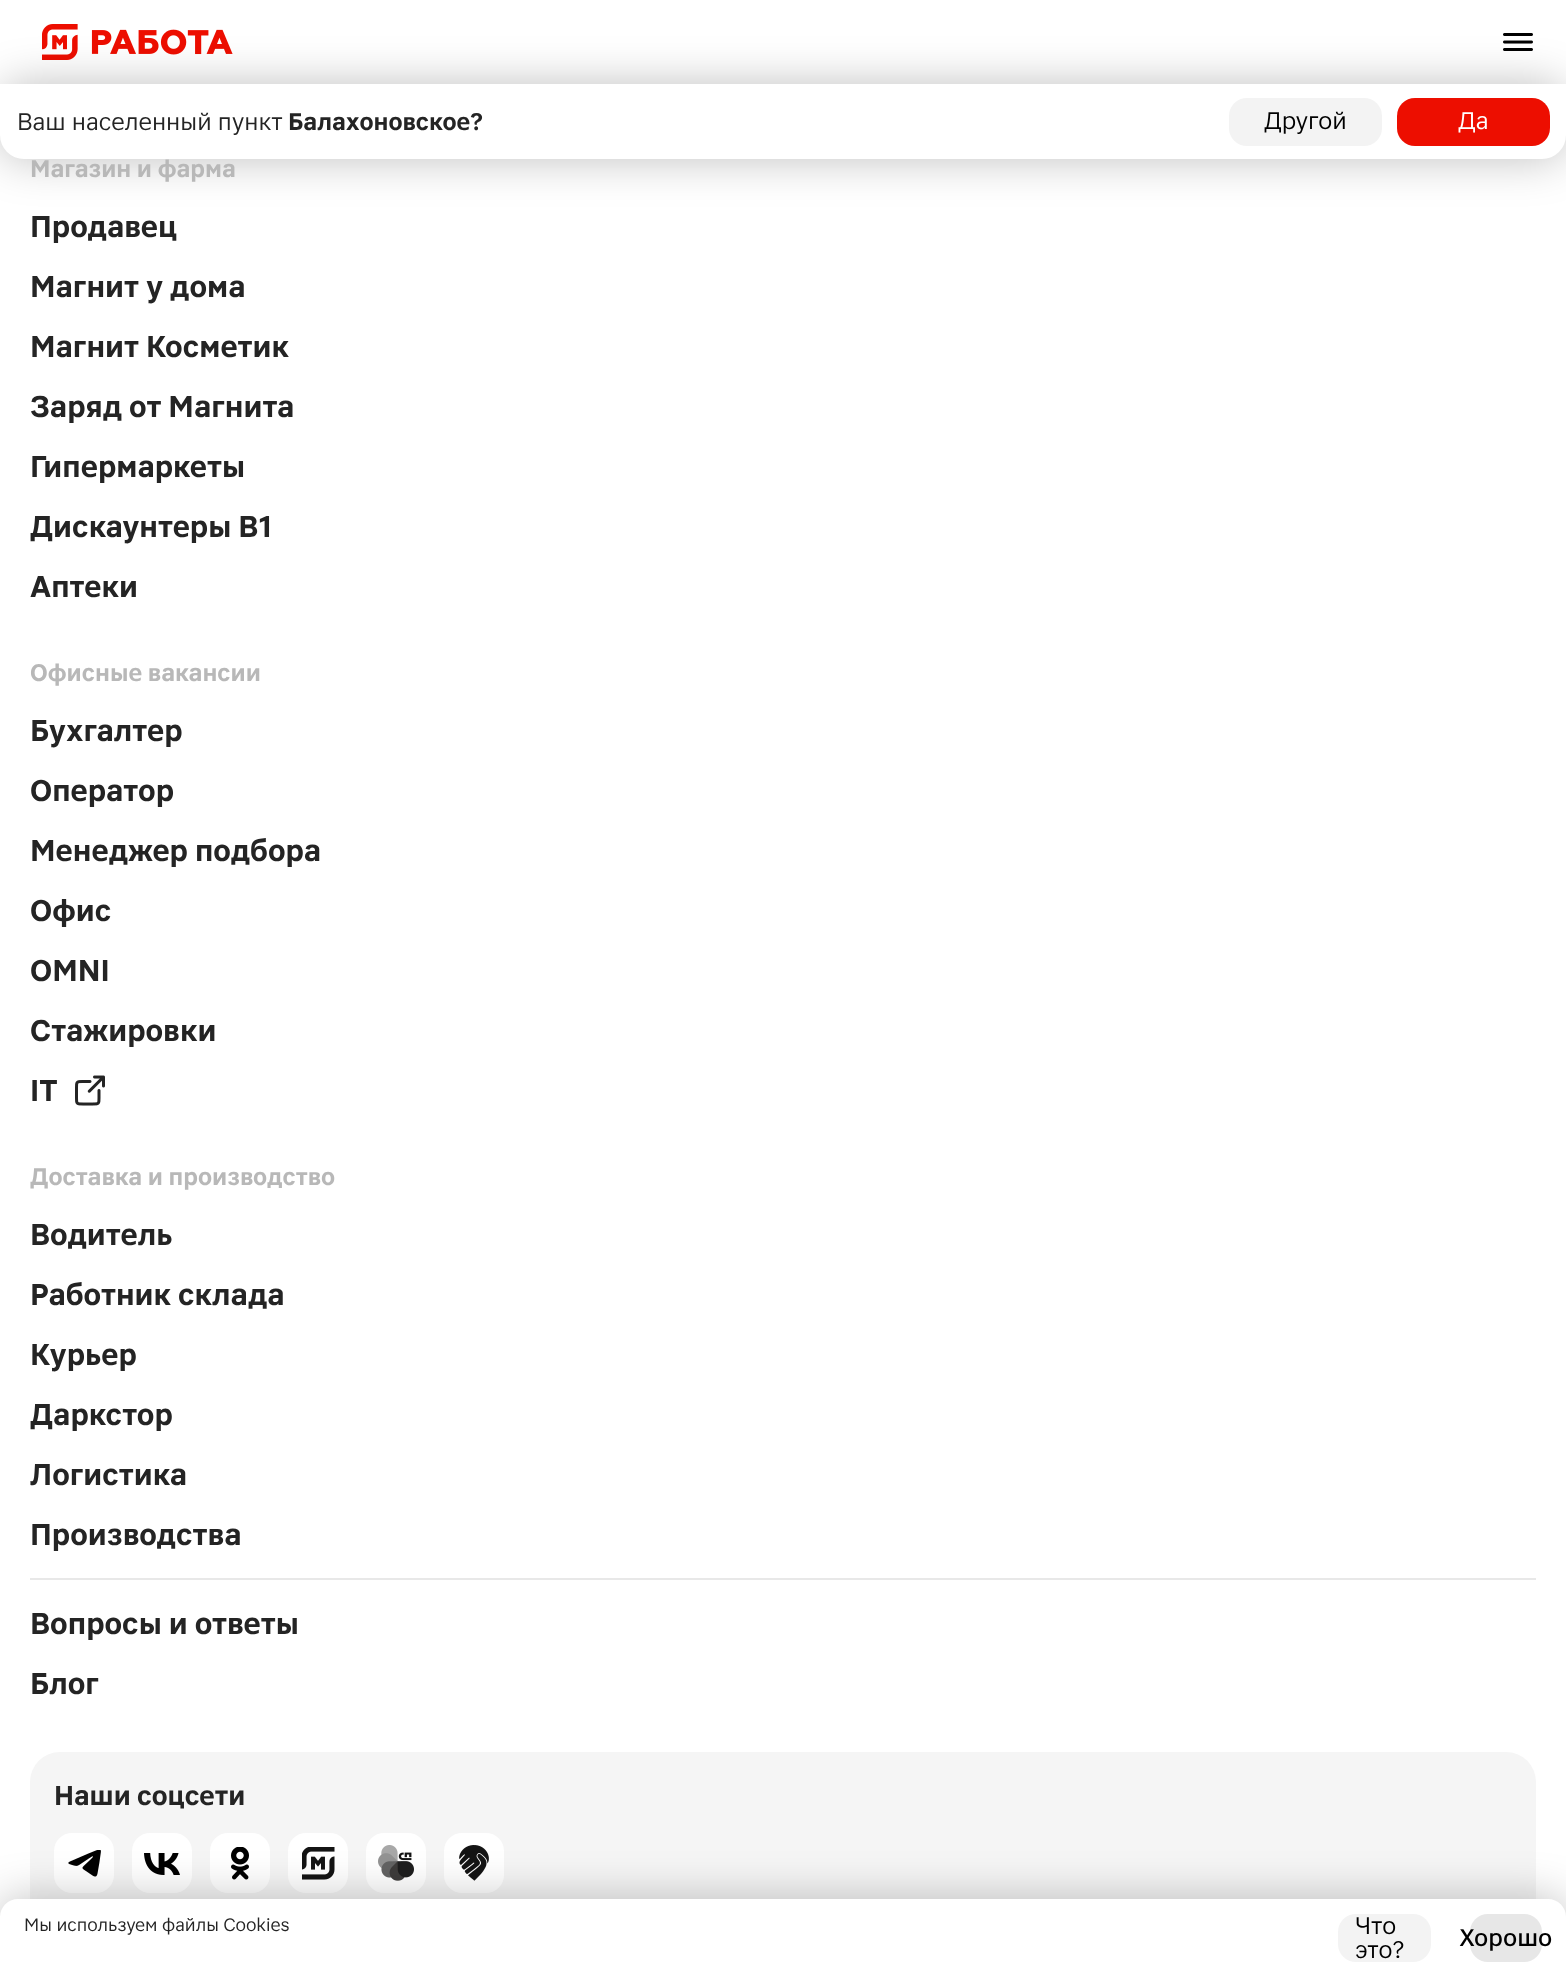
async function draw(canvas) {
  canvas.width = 1566;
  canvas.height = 1970;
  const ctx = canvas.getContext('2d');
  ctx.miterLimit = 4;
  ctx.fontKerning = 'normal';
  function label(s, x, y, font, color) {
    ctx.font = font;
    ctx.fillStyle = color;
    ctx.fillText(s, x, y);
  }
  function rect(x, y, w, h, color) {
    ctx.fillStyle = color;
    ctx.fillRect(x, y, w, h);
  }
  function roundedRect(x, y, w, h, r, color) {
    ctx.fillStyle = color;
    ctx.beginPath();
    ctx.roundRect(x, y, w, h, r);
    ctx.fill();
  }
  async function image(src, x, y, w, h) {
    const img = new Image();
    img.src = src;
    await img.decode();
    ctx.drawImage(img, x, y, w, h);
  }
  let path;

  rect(0, 0, 1566, 1970, '#fff');
  await image('assets/img1.png', 42, 24, 191, 36);
  await image('assets/img2.png', 1503, 33, 30, 18);
  ctx.fillStyle = '#00000040';
  ctx.filter = 'blur(22.5px)';
  ctx.beginPath();
  ctx.roundRect(0, 84, 1566, 75, 24);
  ctx.fill();
  ctx.filter = 'none';
  ctx.fillStyle = '#fff';
  ctx.beginPath();
  ctx.roundRect(0, 84, 1566, 75, [0, 0, 24, 24]);
  ctx.fill();
  label('Ваш населенный пункт', 17, 130, '24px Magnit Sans', '#242424');
  label('Балахоновское?', 288, 130, 'bold 24px Magnit Sans', '#242424');
  roundedRect(1229, 98, 153, 48, 18, '#f3f3f3');
  label('Другой', 1264, 129, '24px Magnit Sans', '#000');
  roundedRect(1397, 98, 153, 48, 18, '#ed0e00');
  label('Да', 1458, 129, '24px Magnit Sans', '#fff');
  label('Магазин и фарма', 30, 177, 'bold 24px Magnit Sans', '#b8b8b8');
  label('Продавец', 30, 237, 'bold 30px Magnit Sans', '#242424');
  label('Магнит у дома', 30, 297, 'bold 30px Magnit Sans', '#242424');
  label('Магнит Косметик', 30, 357, 'bold 30px Magnit Sans', '#242424');
  label('Заряд от Магнита', 30, 417, 'bold 30px Magnit Sans', '#242424');
  label('Гипермаркеты', 30, 477, 'bold 30px Magnit Sans', '#242424');
  label('Дискаунтеры В1', 30, 537, 'bold 30px Magnit Sans', '#242424');
  label('Аптеки', 30, 597, 'bold 30px Magnit Sans', '#242424');
  label('Офисные вакансии', 30, 681, 'bold 24px Magnit Sans', '#b8b8b8');
  label('Бухгалтер', 30, 741, 'bold 30px Magnit Sans', '#242424');
  label('Оператор', 30, 801, 'bold 30px Magnit Sans', '#242424');
  label('Менеджер подбора', 30, 861, 'bold 30px Magnit Sans', '#242424');
  label('Офис', 30, 921, 'bold 30px Magnit Sans', '#242424');
  label('OMNI', 30, 981, 'bold 30px Magnit Sans', '#242424');
  label('Стажировки', 30, 1041, 'bold 30px Magnit Sans', '#242424');
  label('IT', 30, 1101, 'bold 30px Magnit Sans', '#242424');
  await image('assets/img3.png', 75, 1075, 30, 31);
  label('Доставка и производство', 30, 1185, 'bold 24px Magnit Sans', '#b8b8b8');
  label('Водитель', 30, 1245, 'bold 30px Magnit Sans', '#242424');
  label('Работник склада', 30, 1305, 'bold 30px Magnit Sans', '#242424');
  label('Курьер', 30, 1365, 'bold 30px Magnit Sans', '#242424');
  label('Даркстор', 30, 1425, 'bold 30px Magnit Sans', '#242424');
  label('Логистика', 30, 1485, 'bold 30px Magnit Sans', '#242424');
  label('Производства', 30, 1545, 'bold 30px Magnit Sans', '#242424');
  rect(30, 1578, 1506, 2, '#e8e8e8');
  label('Вопросы и ответы', 30, 1634, 'bold 30px Magnit Sans', '#242424');
  label('Блог', 30, 1694, 'bold 30px Magnit Sans', '#242424');
  roundedRect(30, 1752, 1506, 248, 30, '#f5f5f5');
  label('Наши соцсети', 54, 1805, 'bold 27px Magnit Sans', '#242424');
  roundedRect(54, 1833, 60, 60, 18, '#fff');
  await image('assets/img4.png', 68, 1850, 33, 27);
  roundedRect(132, 1833, 60, 60, 18, '#fff');
  await image('assets/img5.png', 144, 1853, 36, 22);
  roundedRect(210, 1833, 60, 60, 18, '#fff');
  await image('assets/img6.png', 231, 1847, 18, 33);
  roundedRect(288, 1833, 60, 60, 18, '#fff');
  await image('assets/img7.png', 302, 1847, 33, 33);
  roundedRect(366, 1833, 60, 60, 18, '#fff');
  await image('assets/img8.png', 378, 1845, 36, 36);
  roundedRect(444, 1833, 60, 60, 18, '#fff');
  await image('assets/img9.png', 459, 1845, 30, 36);
  ctx.fillStyle = '#00000040';
  ctx.filter = 'blur(22.5px)';
  ctx.beginPath();
  ctx.roundRect(0, 1899, 1566, 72, 18);
  ctx.fill();
  ctx.filter = 'none';
  ctx.fillStyle = '#fff';
  path = new Path2D('M18 1899H1548C1558 1899 1566 1907 1566 1917V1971H0V1917C0 1907 8 1899 18 1899Z');
  ctx.fill(path);
  label('Мы используем файлы Cookies', 24, 1931, '18px Magnit Sans', '#242424');
  roundedRect(1338, 1914, 93, 48, 18, '#f3f3f3');
  label('Что', 1355, 1934, '24px Magnit Sans', '#000');
  label('это?', 1355, 1958, '24px Magnit Sans', '#000');
  roundedRect(1470, 1914, 72, 48, 18, '#e7e7e7');
  label('Хорошо', 1459, 1946, '500 24px Magnit Sans', '#000');
}

draw(document.querySelector('canvas'));
